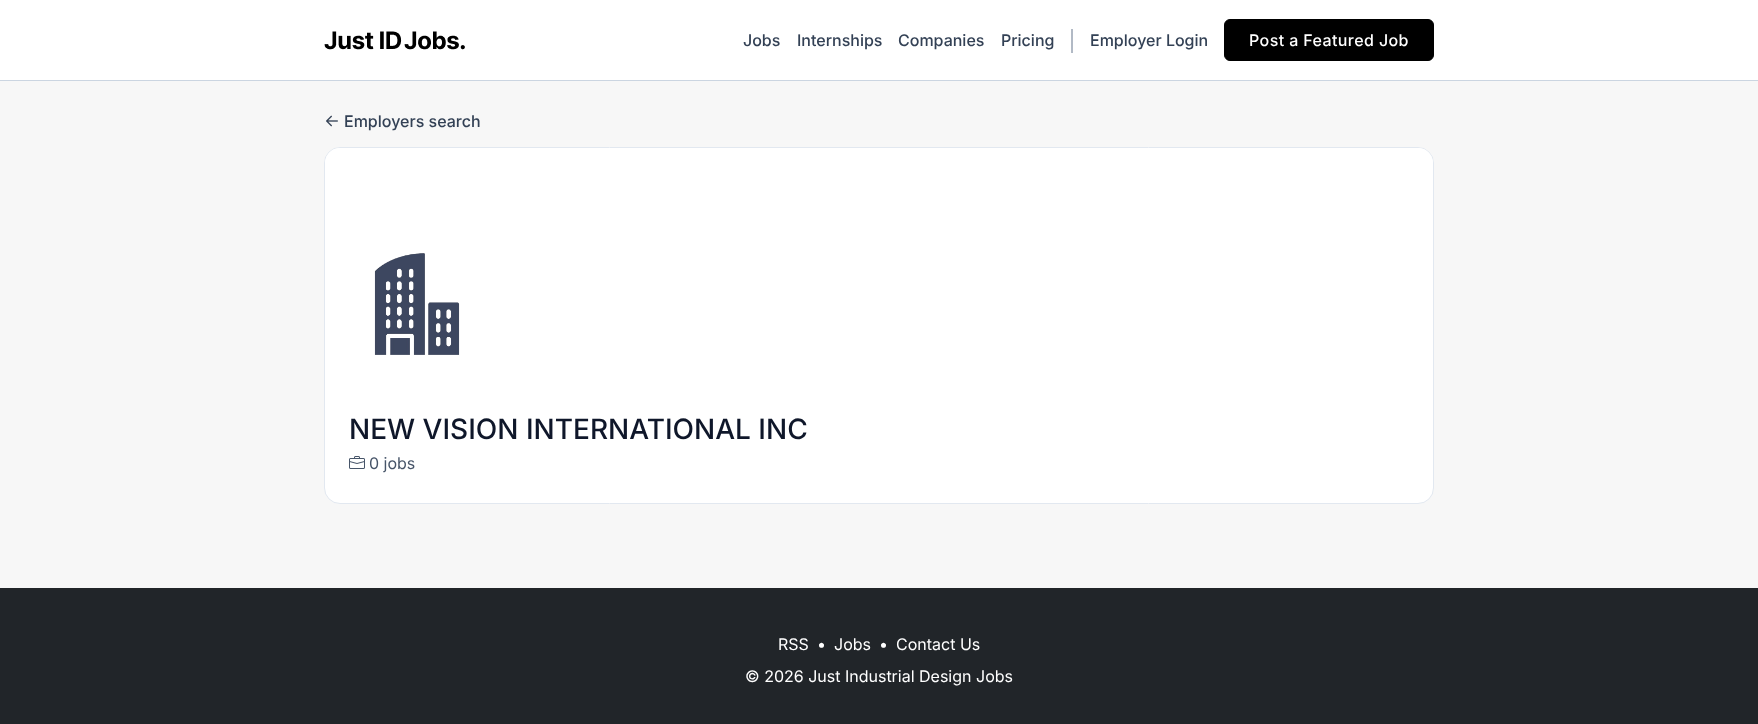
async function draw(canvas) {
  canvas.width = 1758;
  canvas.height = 724;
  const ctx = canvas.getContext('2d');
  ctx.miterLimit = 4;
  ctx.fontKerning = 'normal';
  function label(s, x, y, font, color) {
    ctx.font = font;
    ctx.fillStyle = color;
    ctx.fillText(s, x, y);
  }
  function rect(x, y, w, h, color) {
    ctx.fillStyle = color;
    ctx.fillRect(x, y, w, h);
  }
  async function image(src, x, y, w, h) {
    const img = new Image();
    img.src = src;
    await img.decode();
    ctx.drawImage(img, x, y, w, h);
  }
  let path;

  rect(0, 0, 1758, 724, '#f7f7f7');
  rect(0, 0, 1758, 80, '#fff');
  rect(0, 80, 1758, 1, '#cbd5e1');
  await image('assets/img1.png', 324, 31, 141, 19);
  label('Jobs', 743, 46, '500 16px Inter', '#334155');
  label('Internships', 797, 46, '500 16px Inter', '#334155');
  label('Companies', 898, 46, '500 16px Inter', '#334155');
  label('Pricing', 1001, 46, '500 16px Inter', '#334155');
  path = new Path2D('M1072 29V53');
  ctx.strokeStyle = '#64748b';
  ctx.stroke(path);
  label('Employer Login', 1090, 46, '500 16px Inter', '#334155');
  ctx.fillStyle = '#000';
  ctx.beginPath();
  ctx.roundRect(1224.5, 19.5, 209, 41, 5.5);
  ctx.fill();
  ctx.strokeStyle = '#000';
  ctx.stroke();
  ctx.letterSpacing = '0.4px';
  label('Post a Featured Job', 1249, 46, '500 16px Inter', '#fff');
  await image('assets/img2.png', 326, 115, 12, 12);
  ctx.letterSpacing = '0px';
  label('Employers search', 344, 127, '500 16px Inter', '#334155');
  ctx.fillStyle = '#fff';
  ctx.beginPath();
  ctx.roundRect(324.5, 147.5, 1109, 356, 15.5);
  ctx.fill();
  ctx.strokeStyle = '#e2e8f0';
  ctx.stroke();
  ctx.beginPath();
  ctx.roundRect(325, 148, 1108, 200, [15, 15, 0, 0]);
  ctx.fill();
  await image('assets/img3.png', 374, 253, 86, 102);
  label('NEW VISION INTERNATIONAL INC', 349, 439, '500 28px Inter', '#0f172a');
  await image('assets/img4.png', 349, 456, 16, 13);
  label('0 jobs', 369, 469, '16px Inter', '#475569');
  rect(0, 588, 1758, 136, '#212529');
  label('RSS', 778, 650, '16px Inter', '#fff');
  label('•', 817, 650, '16px Inter', '#fff');
  label('Jobs', 834, 650, '16px Inter', '#fff');
  label('•', 879, 650, '16px Inter', '#fff');
  label('Contact Us', 896, 650, '16px Inter', '#fff');
  label('© 2026 Just Industrial Design Jobs', 745, 682, '16px Inter', '#fff');
}

draw(document.querySelector('canvas'));
